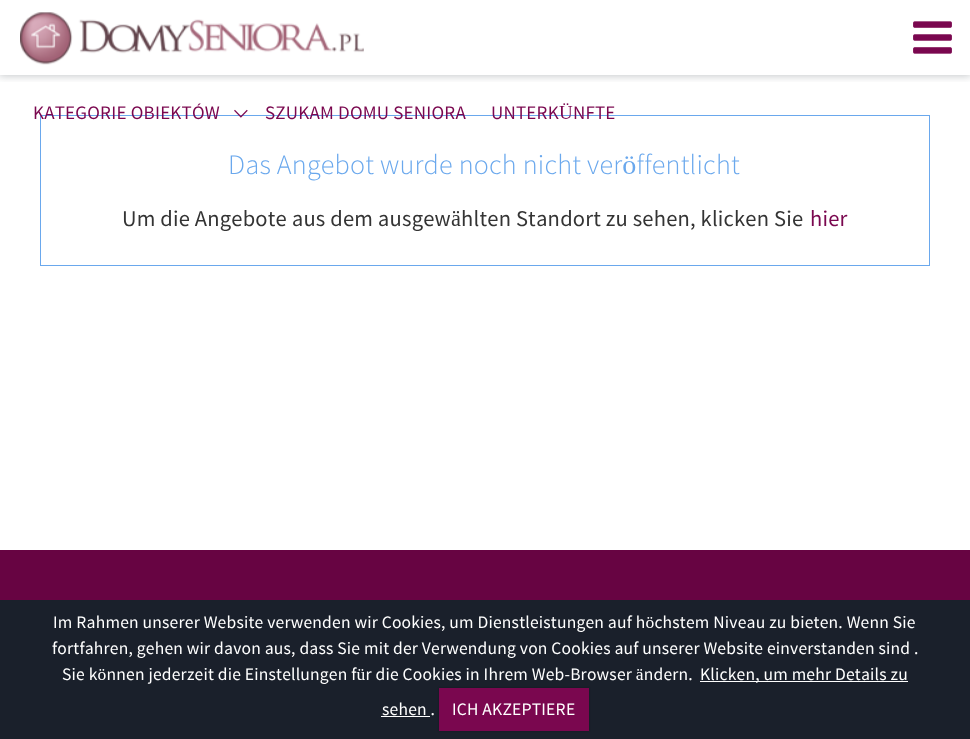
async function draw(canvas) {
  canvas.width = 970;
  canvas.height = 739;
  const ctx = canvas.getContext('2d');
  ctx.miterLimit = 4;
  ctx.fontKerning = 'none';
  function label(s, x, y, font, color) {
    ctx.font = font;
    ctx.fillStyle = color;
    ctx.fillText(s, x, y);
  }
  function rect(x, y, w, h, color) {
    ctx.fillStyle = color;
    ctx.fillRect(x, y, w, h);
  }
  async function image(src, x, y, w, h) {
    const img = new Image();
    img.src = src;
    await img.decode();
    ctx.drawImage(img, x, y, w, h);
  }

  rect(0, 0, 970, 739, '#fff');
  ctx.save();
  ctx.beginPath();
  ctx.rect(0, 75, 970, 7);
  ctx.clip();
  ctx.fillStyle = '#16222a40';
  ctx.filter = 'blur(4px)';
  ctx.beginPath();
  ctx.rect(-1, -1, 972, 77);
  ctx.fill();
  ctx.filter = 'none';
  ctx.restore();
  await image('assets/img1.png', 20, 12, 344, 53);
  await image('assets/img2.png', 913, 21, 39, 33);
  ctx.strokeStyle = '#6aa8ed';
  ctx.strokeRect(40.5, 115.5, 889, 150);
  ctx.letterSpacing = '0.2px';
  label('KATEGORIE OBIEKTÓW', 33, 119, '19px Source Sans Pro', '#7a074f');
  await image('assets/img3.png', 234, 109, 14, 9);
  label('SZUKAM DOMU SENIORA', 265, 119, '19px Source Sans Pro', '#7a074f');
  label('UNTERKÜNFTE', 491, 119, '19px Source Sans Pro', '#7a074f');
  label('Das Angebot wurde noch nicht veröffentlicht', 228, 174, '300 28.1px Source Sans Pro', '#6aa8ed');
  label('Um die Angebote aus dem ausgewählten Standort zu sehen, klicken Sie', 122, 226, '22.5px Source Sans Pro', '#343434');
  label('hier', 810, 226, '22.5px Source Sans Pro', '#7a074f');
  rect(0, 550, 970, 189, '#670442');
  rect(0, 600, 970, 139, '#16222af2');
  label('Im Rahmen unserer Website verwenden wir Cookies, um Dienstleistungen auf höchstem Niveau zu bieten. Wenn Sie', 53, 628, '17.5px Source Sans Pro', '#fff');
  label('fortfahren, gehen wir davon aus, dass Sie mit der Verwendung von Cookies auf unserer Website einverstanden sind .', 52, 654, '17.5px Source Sans Pro', '#fff');
  label('Sie können jederzeit die Einstellungen für die Cookies in Ihrem Web-Browser ändern.', 62, 680, '17.5px Source Sans Pro', '#fff');
  rect(700, 681, 208, 1, '#fff');
  label('Klicken, um mehr Details zu', 700, 680, '17.5px Source Sans Pro', '#fff');
  label('sehen .', 382, 715, '17.5px Source Sans Pro', '#fff');
  rect(381, 716, 49, 1, '#fff');
  ctx.fillStyle = '#00000040';
  ctx.filter = 'blur(1px)';
  ctx.beginPath();
  ctx.rect(439, 688, 150, 43);
  ctx.fill();
  ctx.filter = 'none';
  rect(439, 688, 150, 43, '#7a074f');
  label('ICH AKZEPTIERE', 452, 715, '17.5px Source Sans Pro', '#fff');
}

draw(document.querySelector('canvas'));
